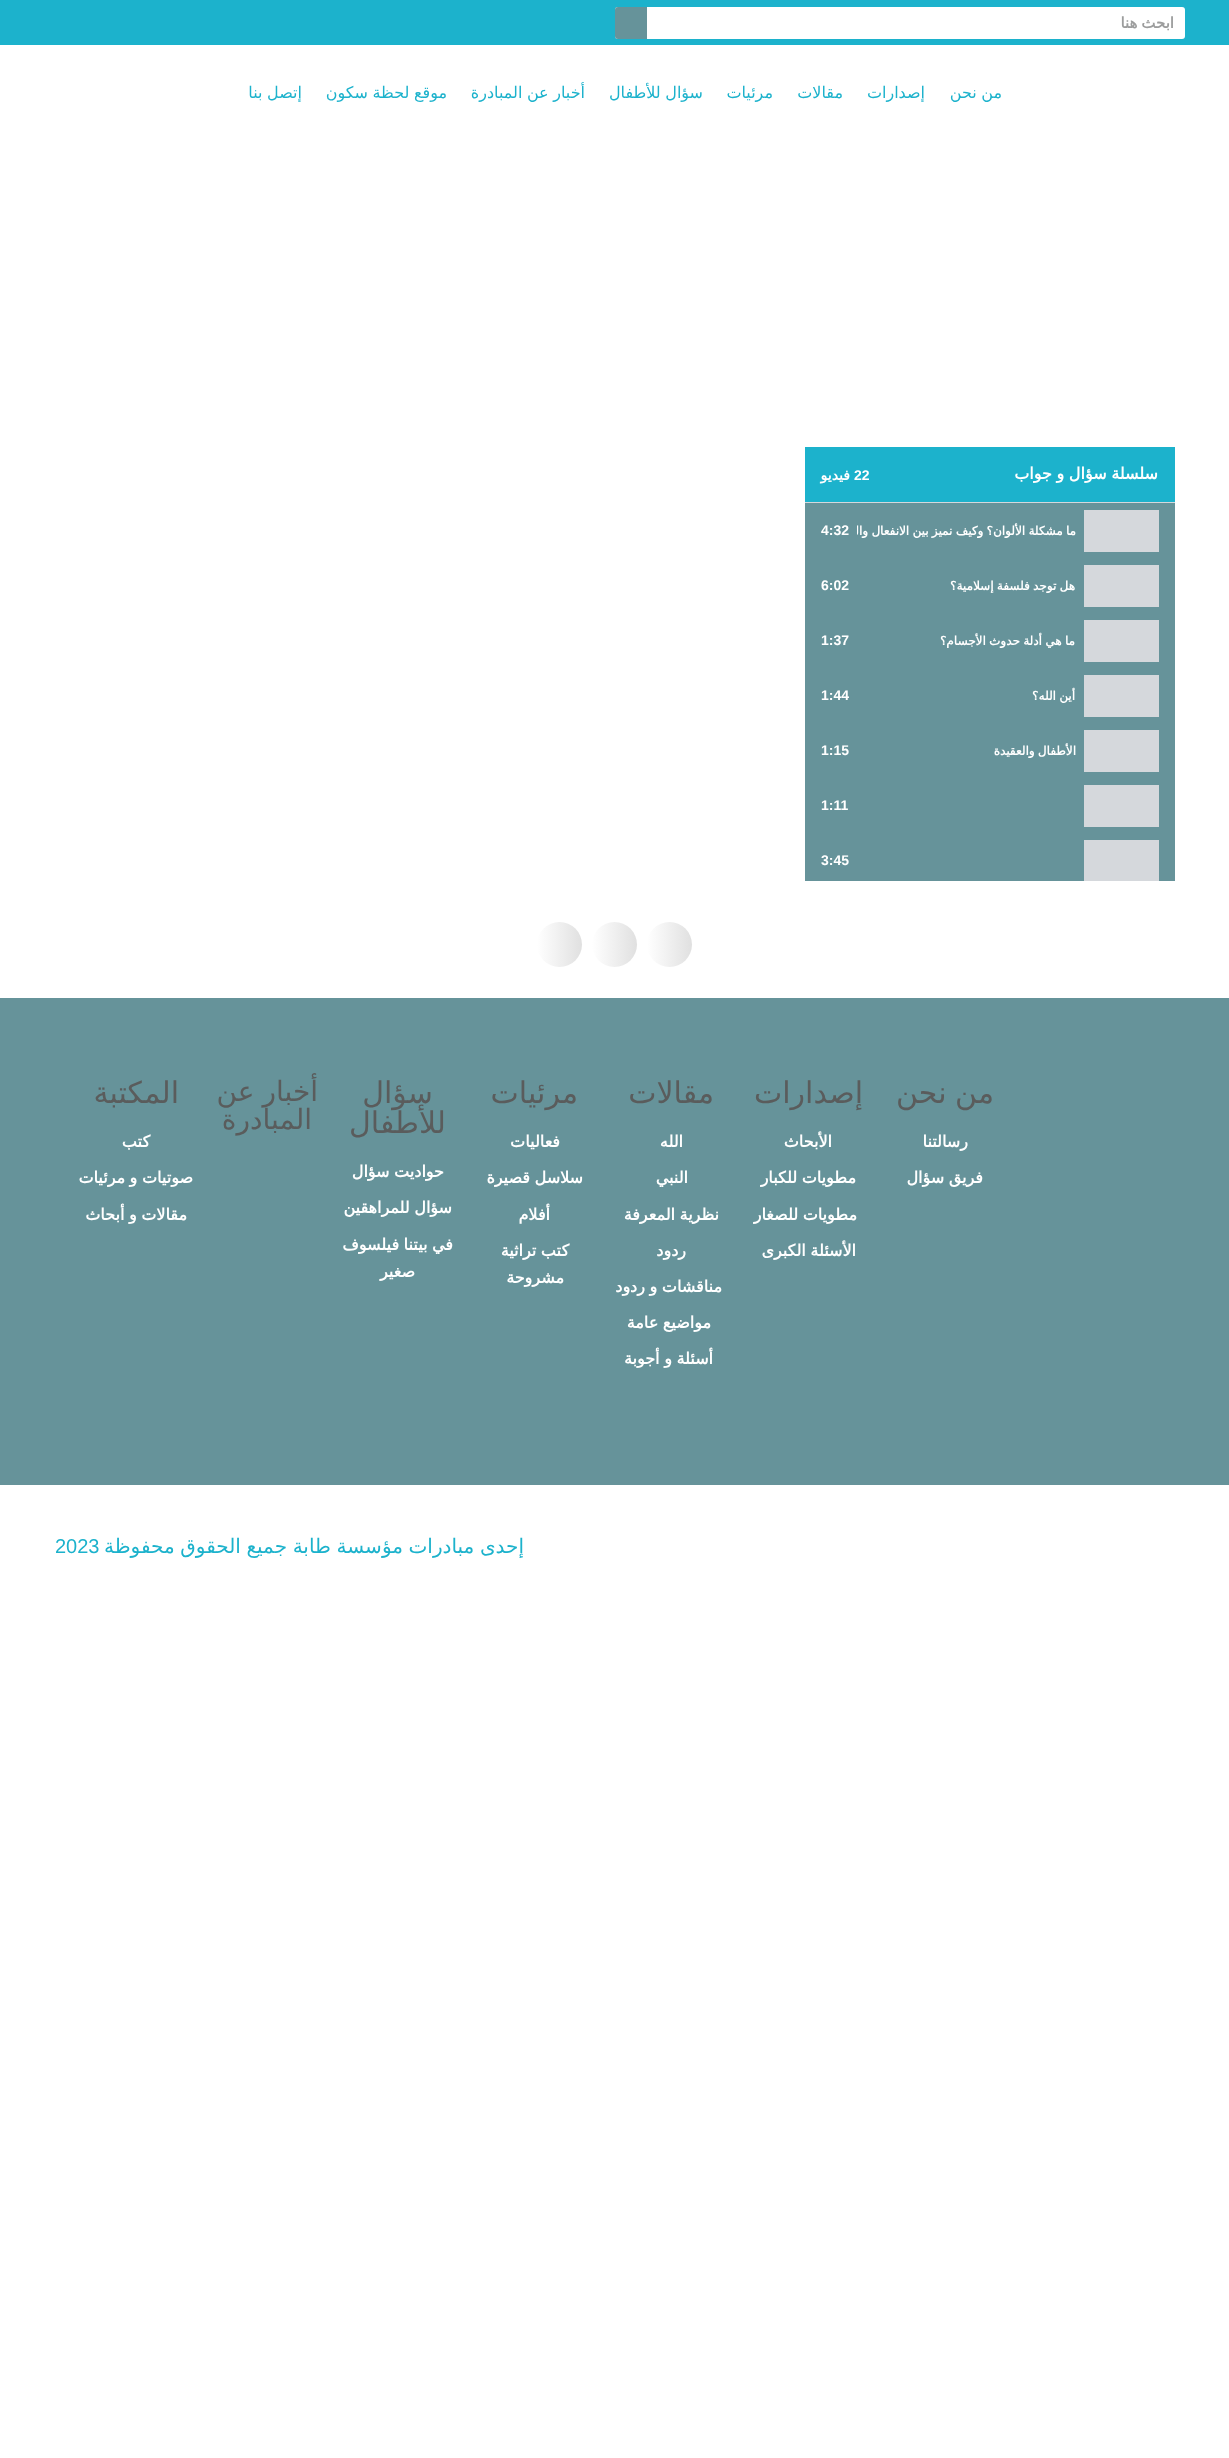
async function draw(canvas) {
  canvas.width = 1229;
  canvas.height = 2458;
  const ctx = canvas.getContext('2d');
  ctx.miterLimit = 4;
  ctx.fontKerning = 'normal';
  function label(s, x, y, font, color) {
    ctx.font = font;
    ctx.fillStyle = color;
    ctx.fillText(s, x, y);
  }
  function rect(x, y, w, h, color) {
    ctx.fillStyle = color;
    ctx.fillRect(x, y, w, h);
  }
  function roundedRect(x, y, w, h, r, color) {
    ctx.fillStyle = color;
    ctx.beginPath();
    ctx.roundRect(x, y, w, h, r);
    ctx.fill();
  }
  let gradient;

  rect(0, 0, 1229, 2458, '#fff');
  rect(0, 0, 1229, 45, '#1cb2cc');
  roundedRect(615, 7, 570, 32, 3, '#fff');
  ctx.wordSpacing = '-1px';
  ctx.direction = 'rtl';
  label('ابحث هنا', 1174, 28, 'bold 15px DejaVu Sans', '#9c9d9d');
  ctx.fillStyle = '#66939a';
  ctx.beginPath();
  ctx.roundRect(615, 7, 32, 32, [3, 0, 0, 3]);
  ctx.fill();
  ctx.wordSpacing = '-0.5px';
  label('من نحن', 1002, 98, '16px DejaVu Sans', '#1cb2cc');
  ctx.wordSpacing = '0px';
  label('إصدارات', 925, 98, '16px DejaVu Sans', '#1cb2cc');
  label('مقالات', 843, 98, '16px DejaVu Sans', '#1cb2cc');
  label('مرئيات', 773, 98, '16px DejaVu Sans', '#1cb2cc');
  ctx.wordSpacing = '-0.5px';
  label('سؤال للأطفال', 703, 98, '16px DejaVu Sans', '#1cb2cc');
  label('أخبار عن المبادرة', 585, 98, '16px DejaVu Sans', '#1cb2cc');
  label('موقع لحظة سكون', 447, 98, '16px DejaVu Sans', '#1cb2cc');
  label('إتصل بنا', 302, 98, '16px DejaVu Sans', '#1cb2cc');
  rect(805, 447, 370, 55, '#1cb2cc');
  rect(805, 502, 370, 1, '#d5d8dc');
  label('سلسلة سؤال و جواب', 1158, 479, 'bold 16px DejaVu Sans', '#fff');
  ctx.wordSpacing = '0px';
  ctx.direction = 'ltr';
  label('22', 854, 480, 'bold 14px Liberation Sans', '#fff');
  ctx.direction = 'rtl';
  label('فيديو', 850, 480, 'bold 14px DejaVu Sans', '#fff');
  rect(805, 503, 370, 378, '#66939a');
  rect(1084, 510, 75, 42, '#d5d8dc');
  ctx.save();
  ctx.beginPath();
  ctx.rect(857, 522, 219, 17);
  ctx.clip();
  ctx.wordSpacing = '-0.5px';
  label('ما مشكلة الألوان؟ وكيف نميز بين الانفعال والفعل؟', 1076, 535, 'bold 12px DejaVu Sans', '#fff');
  ctx.restore();
  ctx.direction = 'ltr';
  label('4:32', 821, 535, 'bold 14px Liberation Sans', '#fff');
  rect(1084, 565, 75, 42, '#d5d8dc');
  ctx.wordSpacing = '-0.5px';
  ctx.direction = 'rtl';
  label('هل توجد فلسفة إسلامية؟', 1075, 590, 'bold 12px DejaVu Sans', '#fff');
  ctx.wordSpacing = '0px';
  ctx.direction = 'ltr';
  label('6:02', 821, 590, 'bold 14px Liberation Sans', '#fff');
  rect(1084, 620, 75, 42, '#d5d8dc');
  ctx.wordSpacing = '-0.5px';
  ctx.direction = 'rtl';
  label('ما هي أدلة حدوث الأجسام؟', 1075, 645, 'bold 12px DejaVu Sans', '#fff');
  ctx.wordSpacing = '0px';
  ctx.direction = 'ltr';
  label('1:37', 821, 645, 'bold 14px Liberation Sans', '#fff');
  rect(1084, 675, 75, 42, '#d5d8dc');
  ctx.wordSpacing = '-0.5px';
  ctx.direction = 'rtl';
  label('أين الله؟', 1075, 700, 'bold 12px DejaVu Sans', '#fff');
  ctx.wordSpacing = '0px';
  ctx.direction = 'ltr';
  label('1:44', 821, 700, 'bold 14px Liberation Sans', '#fff');
  rect(1084, 730, 75, 42, '#d5d8dc');
  ctx.wordSpacing = '-0.5px';
  ctx.direction = 'rtl';
  label('الأطفال والعقيدة', 1076, 755, 'bold 12px DejaVu Sans', '#fff');
  ctx.wordSpacing = '0px';
  ctx.direction = 'ltr';
  label('1:15', 821, 755, 'bold 14px Liberation Sans', '#fff');
  rect(1084, 785, 75, 42, '#d5d8dc');
  label('1:11', 821, 810, 'bold 14px Liberation Sans', '#fff');
  rect(1084, 840, 75, 41, '#d5d8dc');
  label('3:45', 821, 865, 'bold 14px Liberation Sans', '#fff');
  gradient = ctx.createLinearGradient(692, 945, 647, 945);
  gradient.addColorStop(0, '#e0e0e0');
  gradient.addColorStop(1, '#fff');
  ctx.fillStyle = gradient;
  ctx.beginPath();
  ctx.arc(669.5, 944.5, 22.5, 0, 2 * Math.PI);
  ctx.fill();
  gradient = ctx.createLinearGradient(637, 945, 592, 945);
  gradient.addColorStop(0, '#e0e0e0');
  gradient.addColorStop(1, '#fff');
  ctx.fillStyle = gradient;
  ctx.beginPath();
  ctx.arc(614.5, 944.5, 22.5, 0, 2 * Math.PI);
  ctx.fill();
  gradient = ctx.createLinearGradient(582, 945, 537, 945);
  gradient.addColorStop(0, '#e0e0e0');
  gradient.addColorStop(1, '#fff');
  ctx.fillStyle = gradient;
  ctx.beginPath();
  ctx.arc(559.5, 944.5, 22.5, 0, 2 * Math.PI);
  ctx.fill();
  rect(0, 998, 1229, 487, '#66939a');
  ctx.wordSpacing = '-1px';
  ctx.direction = 'rtl';
  label('من نحن', 994, 1103, '30px DejaVu Sans', '#5a5c5c');
  ctx.wordSpacing = '0px';
  label('رسالتنا', 968, 1147, 'bold 16px DejaVu Sans', '#fff');
  ctx.wordSpacing = '-0.5px';
  label('فريق سؤال', 983, 1183, 'bold 16px DejaVu Sans', '#fff');
  ctx.wordSpacing = '0px';
  label('إصدارات', 863, 1103, '30px DejaVu Sans', '#5a5c5c');
  label('الأبحاث', 832, 1147, 'bold 16px DejaVu Sans', '#fff');
  ctx.wordSpacing = '-0.5px';
  label('مطويات للكبار', 856, 1183, 'bold 16px DejaVu Sans', '#fff');
  label('مطويات للصغار', 857, 1220, 'bold 16px DejaVu Sans', '#fff');
  label('الأسئلة الكبرى', 856, 1256, 'bold 16px DejaVu Sans', '#fff');
  ctx.wordSpacing = '0px';
  label('مقالات', 714, 1103, '30px DejaVu Sans', '#5a5c5c');
  label('الله', 683, 1147, 'bold 16px DejaVu Sans', '#fff');
  label('النبي', 688, 1183, 'bold 16px DejaVu Sans', '#fff');
  ctx.wordSpacing = '-0.5px';
  label('نظرية المعرفة', 719, 1220, 'bold 16px DejaVu Sans', '#fff');
  ctx.wordSpacing = '0px';
  label('ردود', 686, 1256, 'bold 16px DejaVu Sans', '#fff');
  ctx.wordSpacing = '-0.5px';
  label('مناقشات و ردود', 722, 1292, 'bold 16px DejaVu Sans', '#fff');
  label('مواضيع عامة', 711, 1328, 'bold 16px DejaVu Sans', '#fff');
  label('أسئلة و أجوبة', 713, 1364, 'bold 16px DejaVu Sans', '#fff');
  ctx.wordSpacing = '0px';
  label('مرئيات', 578, 1103, '30px DejaVu Sans', '#5a5c5c');
  label('فعاليات', 560, 1147, 'bold 16px DejaVu Sans', '#fff');
  ctx.wordSpacing = '-0.5px';
  label('سلاسل قصيرة', 583, 1183, 'bold 16px DejaVu Sans', '#fff');
  ctx.wordSpacing = '0px';
  label('أفلام', 550, 1220, 'bold 16px DejaVu Sans', '#fff');
  ctx.wordSpacing = '-0.5px';
  label('كتب تراثية', 569, 1256, 'bold 16px DejaVu Sans', '#fff');
  ctx.wordSpacing = '0px';
  label('مشروحة', 564, 1283, 'bold 16px DejaVu Sans', '#fff');
  label('سؤال', 433, 1103, '30px DejaVu Sans', '#5a5c5c');
  label('للأطفال', 446, 1133, '30px DejaVu Sans', '#5a5c5c');
  ctx.wordSpacing = '-0.5px';
  label('حواديت سؤال', 444, 1177, 'bold 16px DejaVu Sans', '#fff');
  label('سؤال للمراهقين', 452, 1213, 'bold 16px DejaVu Sans', '#fff');
  label('في بيتنا فيلسوف', 453, 1250, 'bold 16px DejaVu Sans', '#fff');
  ctx.wordSpacing = '0px';
  label('صغير', 415, 1277, 'bold 16px DejaVu Sans', '#fff');
  ctx.wordSpacing = '-1px';
  label('أخبار عن', 318, 1101, '28px DejaVu Sans', '#5a5c5c');
  ctx.wordSpacing = '0px';
  label('المبادرة', 312, 1129, '28px DejaVu Sans', '#5a5c5c');
  label('المكتبة', 179, 1103, '30px DejaVu Sans', '#5a5c5c');
  label('كتب', 150, 1147, 'bold 16px DejaVu Sans', '#fff');
  ctx.wordSpacing = '-0.5px';
  label('صوتيات و مرئيات', 193, 1183, 'bold 16px DejaVu Sans', '#fff');
  label('مقالات و أبحاث', 187, 1220, 'bold 16px DejaVu Sans', '#fff');
  ctx.wordSpacing = '-0.75px';
  label('إحدى مبادرات مؤسسة طابة جميع الحقوق محفوظة', 524, 1553, '20px DejaVu Sans', '#1cb2cc');
  ctx.wordSpacing = '0px';
  ctx.direction = 'ltr';
  label('2023', 55, 1553, '20px Liberation Sans', '#1cb2cc');
}

draw(document.querySelector('canvas'));
